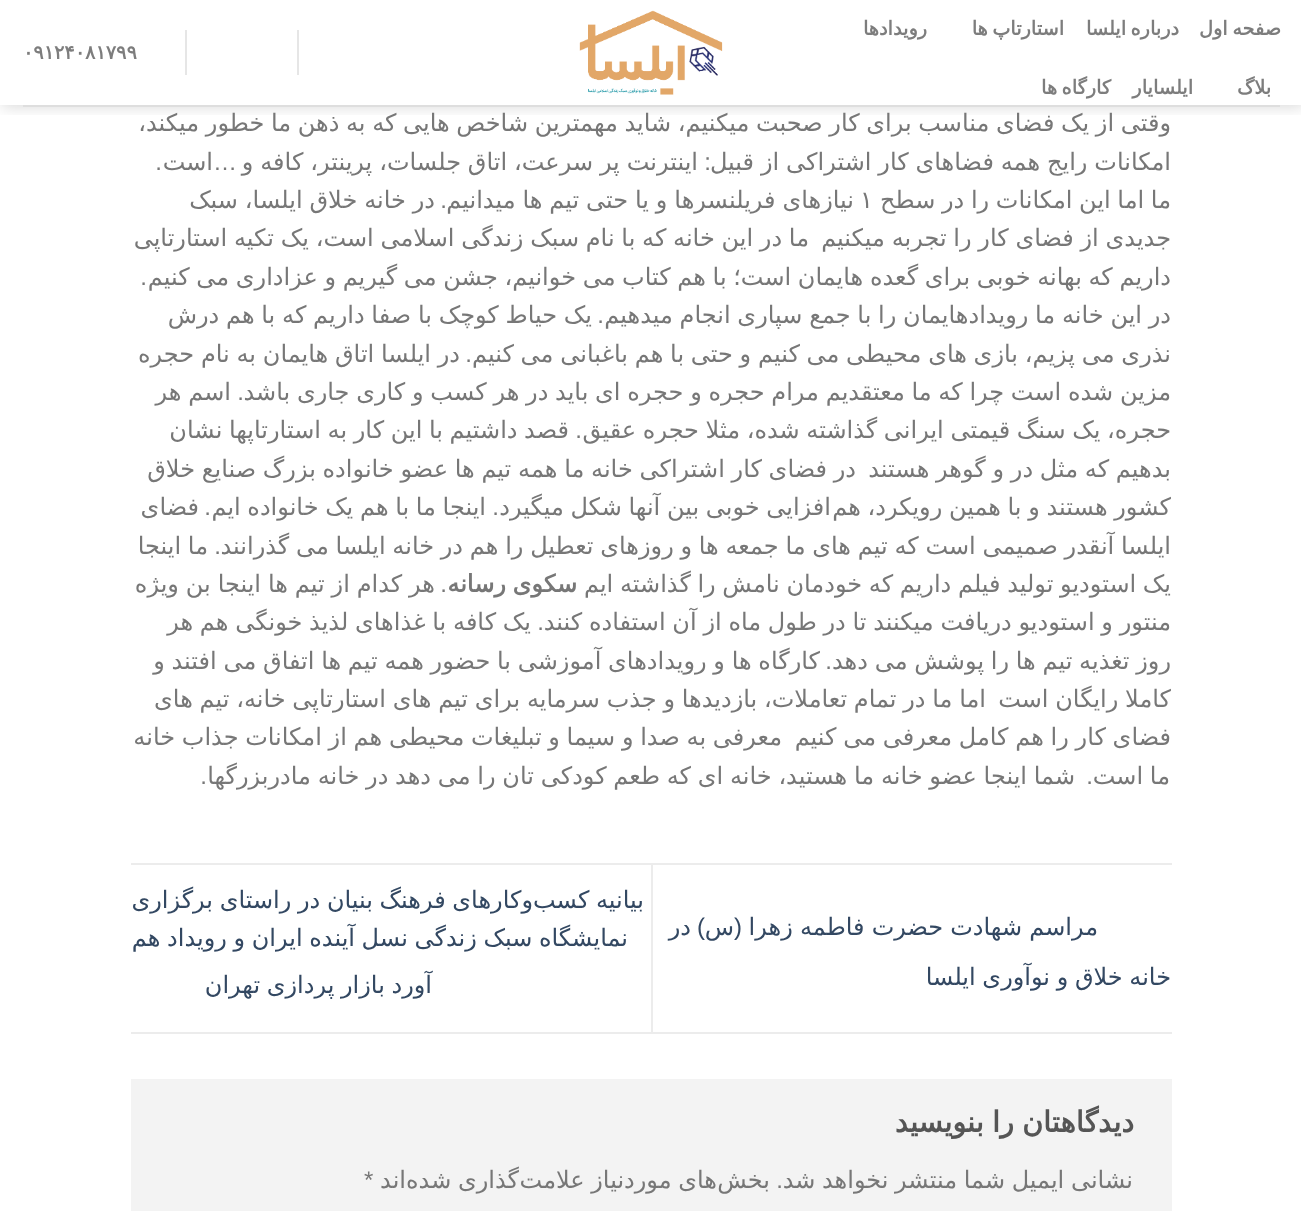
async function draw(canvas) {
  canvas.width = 1301;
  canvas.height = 1211;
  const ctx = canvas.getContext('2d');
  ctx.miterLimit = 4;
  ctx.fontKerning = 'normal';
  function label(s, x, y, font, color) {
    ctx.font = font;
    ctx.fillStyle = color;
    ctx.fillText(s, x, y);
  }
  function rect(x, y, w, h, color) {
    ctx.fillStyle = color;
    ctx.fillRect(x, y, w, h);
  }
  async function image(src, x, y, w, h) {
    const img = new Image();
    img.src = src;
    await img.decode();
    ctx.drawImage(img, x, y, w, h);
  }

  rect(0, 0, 1301, 1211, '#fff');
  ctx.save();
  ctx.beginPath();
  ctx.rect(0, 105, 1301, 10);
  ctx.clip();
  ctx.fillStyle = '#00000026';
  ctx.filter = 'blur(7.5px)';
  ctx.beginPath();
  ctx.rect(2, 2, 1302, 105);
  ctx.fill();
  ctx.filter = 'none';
  ctx.restore();
  ctx.letterSpacing = '0.4px';
  ctx.wordSpacing = '-2px';
  ctx.direction = 'rtl';
  label('صفحه اول', 1281, 35, 'bold 19.25px DejaVu Sans', '#7d7d7d');
  label('درباره ایلسا', 1179, 35, 'bold 19.25px DejaVu Sans', '#7d7d7d');
  label('استارتاپ ها', 1064, 35, 'bold 19.25px DejaVu Sans', '#7d7d7d');
  ctx.wordSpacing = '0px';
  label('رویدادها', 927, 35, 'bold 19.25px DejaVu Sans', '#7d7d7d');
  label('بلاگ', 1271, 94, 'bold 19.25px DejaVu Sans', '#7d7d7d');
  label('ایلسایار', 1193, 94, 'bold 19.25px DejaVu Sans', '#7d7d7d');
  ctx.wordSpacing = '-2px';
  label('کارگاه ها', 1111, 94, 'bold 19.25px DejaVu Sans', '#7d7d7d');
  await image('assets/img1.png', 579, 10, 144, 85);
  rect(297, 30, 2, 45, '#e6e6e6');
  rect(185, 30, 2, 45, '#e6e6e6');
  ctx.wordSpacing = '0px';
  ctx.direction = 'ltr';
  label('۰۹۱۲۴۰۸۱۷۹۹', 23, 59, 'bold 19.25px DejaVu Sans', '#7d7d7d');
  rect(23, 105, 1257, 2, '#dedede');
  ctx.letterSpacing = '0px';
  ctx.wordSpacing = '-1px';
  ctx.direction = 'rtl';
  label('وقتی از یک فضای مناسب برای کار صحبت میکنیم، شاید مهمترین شاخص هایی که به ذهن ما خطور میکند،', 1171, 131, '24px DejaVu Sans', '#777');
  ctx.wordSpacing = '-0.75px';
  label('امکانات رایج همه فضاهای کار اشتراکی از قبیل', 1171, 170, '24px DejaVu Sans', '#777');
  ctx.wordSpacing = '0px';
  label(':', 711, 170, '24px Liberation Sans', '#777');
  ctx.wordSpacing = '-0.75px';
  label('اینترنت پر سرعت، اتاق جلسات، پرینتر، کافه و', 698, 170, '24px DejaVu Sans', '#777');
  ctx.wordSpacing = '0px';
  label('…', 237, 170, '24px Liberation Sans', '#777');
  label('است', 213, 170, '24px DejaVu Sans', '#777');
  label('.', 162, 170, '24px Liberation Sans', '#777');
  ctx.wordSpacing = '-1px';
  label('ما اما این امکانات را در سطح', 1171, 208, '24px DejaVu Sans', '#777');
  ctx.wordSpacing = '0px';
  ctx.direction = 'ltr';
  label('۱', 860, 208, '24px DejaVu Sans', '#777');
  ctx.wordSpacing = '-0.75px';
  ctx.direction = 'rtl';
  label('نیازهای فریلنسرها و یا حتی تیم ها میدانیم', 854, 208, '24px DejaVu Sans', '#777');
  ctx.wordSpacing = '0px';
  label('.', 447, 208, '24px Liberation Sans', '#777');
  ctx.wordSpacing = '-0.75px';
  label('در خانه خلاق ایلسا، سبک', 435, 208, '24px DejaVu Sans', '#777');
  ctx.wordSpacing = '-0.9px';
  label('جدیدی از فضای کار را تجربه میکنیم', 1171, 246, '24px DejaVu Sans', '#777');
  label('ما در این خانه که با نام سبک زندگی اسلامی است، یک تکیه استارتاپی', 809, 246, '24px DejaVu Sans', '#777');
  ctx.wordSpacing = '-1px';
  label('داریم که بهانه خوبی برای گعده هایمان است؛ با هم کتاب می خوانیم، جشن می گیریم و عزاداری می کنیم', 1171, 285, '24px DejaVu Sans', '#777');
  ctx.wordSpacing = '0px';
  label('.', 147, 285, '24px Liberation Sans', '#777');
  ctx.wordSpacing = '-0.9px';
  label('در این خانه ما رویدادهایمان را با جمع سپاری انجام میدهیم', 1171, 323, '24px DejaVu Sans', '#777');
  label('یک حیاط کوچک با صفا داریم که با هم درش', 592, 323, '24px DejaVu Sans', '#777');
  ctx.wordSpacing = '0px';
  label('.', 604, 323, '24px Liberation Sans', '#777');
  ctx.wordSpacing = '-0.9px';
  label('نذری می پزیم، بازی های محیطی می کنیم و حتی با هم باغبانی می کنیم', 1171, 362, '24px DejaVu Sans', '#777');
  ctx.wordSpacing = '0px';
  label('.', 472, 362, '24px Liberation Sans', '#777');
  ctx.wordSpacing = '-0.9px';
  label('در ایلسا اتاق هایمان به نام حجره', 460, 362, '24px DejaVu Sans', '#777');
  label('مزین شده است چرا که ما معتقدیم مرام حجره و حجره ای باید در هر کسب و کاری جاری باشد', 1171, 400, '24px DejaVu Sans', '#777');
  ctx.wordSpacing = '0px';
  label('.', 244, 400, '24px Liberation Sans', '#777');
  ctx.wordSpacing = '-0.9px';
  label('اسم هر', 231, 400, '24px DejaVu Sans', '#777');
  ctx.wordSpacing = '-1px';
  label('حجره، یک سنگ قیمتی ایرانی گذاشته شده، مثلا حجره عقیق', 1171, 438, '24px DejaVu Sans', '#777');
  ctx.wordSpacing = '0px';
  label('.', 582, 438, '24px Liberation Sans', '#777');
  ctx.wordSpacing = '-1px';
  label('قصد داشتیم با این کار به استارتاپها نشان', 569, 438, '24px DejaVu Sans', '#777');
  ctx.wordSpacing = '-0.9px';
  label('بدهیم که مثل در و گوهر هستند', 1171, 477, '24px DejaVu Sans', '#777');
  label('در فضای کار اشتراکی خانه ما همه تیم ها عضو خانواده بزرگ صنایع خلاق', 856, 477, '24px DejaVu Sans', '#777');
  ctx.wordSpacing = '-1px';
  label('افزایی خوبی بین آنها شکل میگیرد', 831, 515, '24px DejaVu Sans', '#777');
  label('کشور هستند و با همین رویکرد، هم', 1171, 515, '24px DejaVu Sans', '#777');
  ctx.wordSpacing = '0px';
  label('.', 499, 515, '24px Liberation Sans', '#777');
  ctx.wordSpacing = '-1px';
  label('اینجا ما با هم یک خانواده ایم', 486, 515, '24px DejaVu Sans', '#777');
  ctx.wordSpacing = '0px';
  label('.', 211, 515, '24px Liberation Sans', '#777');
  label('فضای', 199, 515, '24px DejaVu Sans', '#777');
  ctx.wordSpacing = '-0.9px';
  label('ایلسا آنقدر صمیمی است که تیم های ما جمعه ها و روزهای تعطیل را هم در خانه ایلسا می گذرانند', 1171, 554, '24px DejaVu Sans', '#777');
  ctx.wordSpacing = '0px';
  label('.', 221, 554, '24px Liberation Sans', '#777');
  ctx.wordSpacing = '-0.9px';
  label('ما اینجا', 208, 554, '24px DejaVu Sans', '#777');
  ctx.wordSpacing = '-1px';
  label('یک استودیو تولید فیلم داریم که خودمان نامش را گذاشته ایم', 1171, 592, '24px DejaVu Sans', '#777');
  label('سکوی رسانه', 577, 592, 'bold 24px DejaVu Sans', '#777');
  ctx.wordSpacing = '0px';
  label('.', 447, 592, '24px Liberation Sans', '#777');
  ctx.wordSpacing = '-0.75px';
  label('هر کدام از تیم ها اینجا بن ویژه', 435, 592, '24px DejaVu Sans', '#777');
  ctx.wordSpacing = '-0.9px';
  label('منتور و استودیو دریافت میکنند تا در طول ماه از آن استفاده کنند', 1171, 630, '24px DejaVu Sans', '#777');
  ctx.wordSpacing = '0px';
  label('.', 544, 630, '24px Liberation Sans', '#777');
  ctx.wordSpacing = '-0.9px';
  label('یک کافه با غذاهای لذیذ خونگی هم هر', 531, 630, '24px DejaVu Sans', '#777');
  label('روز تغذیه تیم ها را پوشش می دهد', 1171, 669, '24px DejaVu Sans', '#777');
  label('کارگاه ها و رویدادهای آموزشی با حضور همه تیم ها اتفاق می افتند و', 820, 669, '24px DejaVu Sans', '#777');
  ctx.wordSpacing = '0px';
  label('.', 832, 669, '24px Liberation Sans', '#777');
  ctx.wordSpacing = '-0.9px';
  label('کاملا رایگان است', 1171, 707, '24px DejaVu Sans', '#777');
  label('اما ما در تمام تعاملات، بازدیدها و جذب سرمایه برای تیم های استارتاپی خانه، تیم های', 986, 707, '24px DejaVu Sans', '#777');
  label('فضای کار را هم کامل معرفی می کنیم', 1171, 745, '24px DejaVu Sans', '#777');
  label('معرفی به صدا و سیما و تبلیغات محیطی هم از امکانات جذاب خانه', 782, 745, '24px DejaVu Sans', '#777');
  label('ما است', 1170, 784, '24px DejaVu Sans', '#777');
  ctx.wordSpacing = '0px';
  label('.', 1093, 784, '24px Liberation Sans', '#777');
  ctx.wordSpacing = '-0.9px';
  label('شما اینجا عضو خانه ما هستید، خانه ای که طعم کودکی تان را می دهد در خانه مادربزرگها', 1075, 784, '24px DejaVu Sans', '#777');
  ctx.wordSpacing = '0px';
  label('.', 207, 784, '24px Liberation Sans', '#777');
  rect(131, 863, 1041, 2, '#ececec');
  rect(131, 1032, 1041, 2, '#ececec');
  ctx.wordSpacing = '-0.5px';
  label('مراسم شهادت حضرت فاطمه زهرا', 1098, 935, '24px DejaVu Sans', '#334862');
  ctx.wordSpacing = '0px';
  label('(', 742, 935, '24px Liberation Sans', '#334862');
  label('س', 734, 935, '24px DejaVu Sans', '#334862');
  label(')', 705, 935, '24px Liberation Sans', '#334862');
  label('در', 691, 935, '24px DejaVu Sans', '#334862');
  ctx.wordSpacing = '-1px';
  label('خانه خلاق و نوآوری ایلسا', 1171, 985, '24px DejaVu Sans', '#334862');
  rect(651, 864, 2, 168, '#ececec');
  label('بیانیه کسب', 644, 908, '24px DejaVu Sans', '#334862');
  label('وکارهای فرهنگ', 533, 908, '24px DejaVu Sans', '#334862');
  label('بنیان در راستای برگزاری', 373, 908, '24px DejaVu Sans', '#334862');
  label('نمایشگاه سبک زندگی نسل آینده ایران و رویداد هم', 628, 946, '24px DejaVu Sans', '#334862');
  label('آورد بازار پردازی تهران', 432, 993, '24px DejaVu Sans', '#334862');
  rect(131, 1079, 1041, 132, '#f3f3f3');
  label('دیدگاهتان را بنویسید', 1134, 1132, 'bold 28.75px DejaVu Sans', '#555');
  label('نشانی ایمیل شما منتشر نخواهد شد', 1133, 1188, '24px DejaVu Sans', '#777');
  ctx.wordSpacing = '0px';
  label('.', 783, 1188, '24px Liberation Sans', '#777');
  label('بخش', 770, 1188, '24px DejaVu Sans', '#777');
  ctx.wordSpacing = '-1px';
  label('گذاری شده', 519, 1188, '24px DejaVu Sans', '#777');
  label('های موردنیاز علامت', 717, 1188, '24px DejaVu Sans', '#777');
  ctx.wordSpacing = '0px';
  label('اند', 406, 1188, '24px DejaVu Sans', '#777');
  ctx.direction = 'ltr';
  label('*', 364, 1188, '24px Liberation Sans', '#777');
}

draw(document.querySelector('canvas'));
